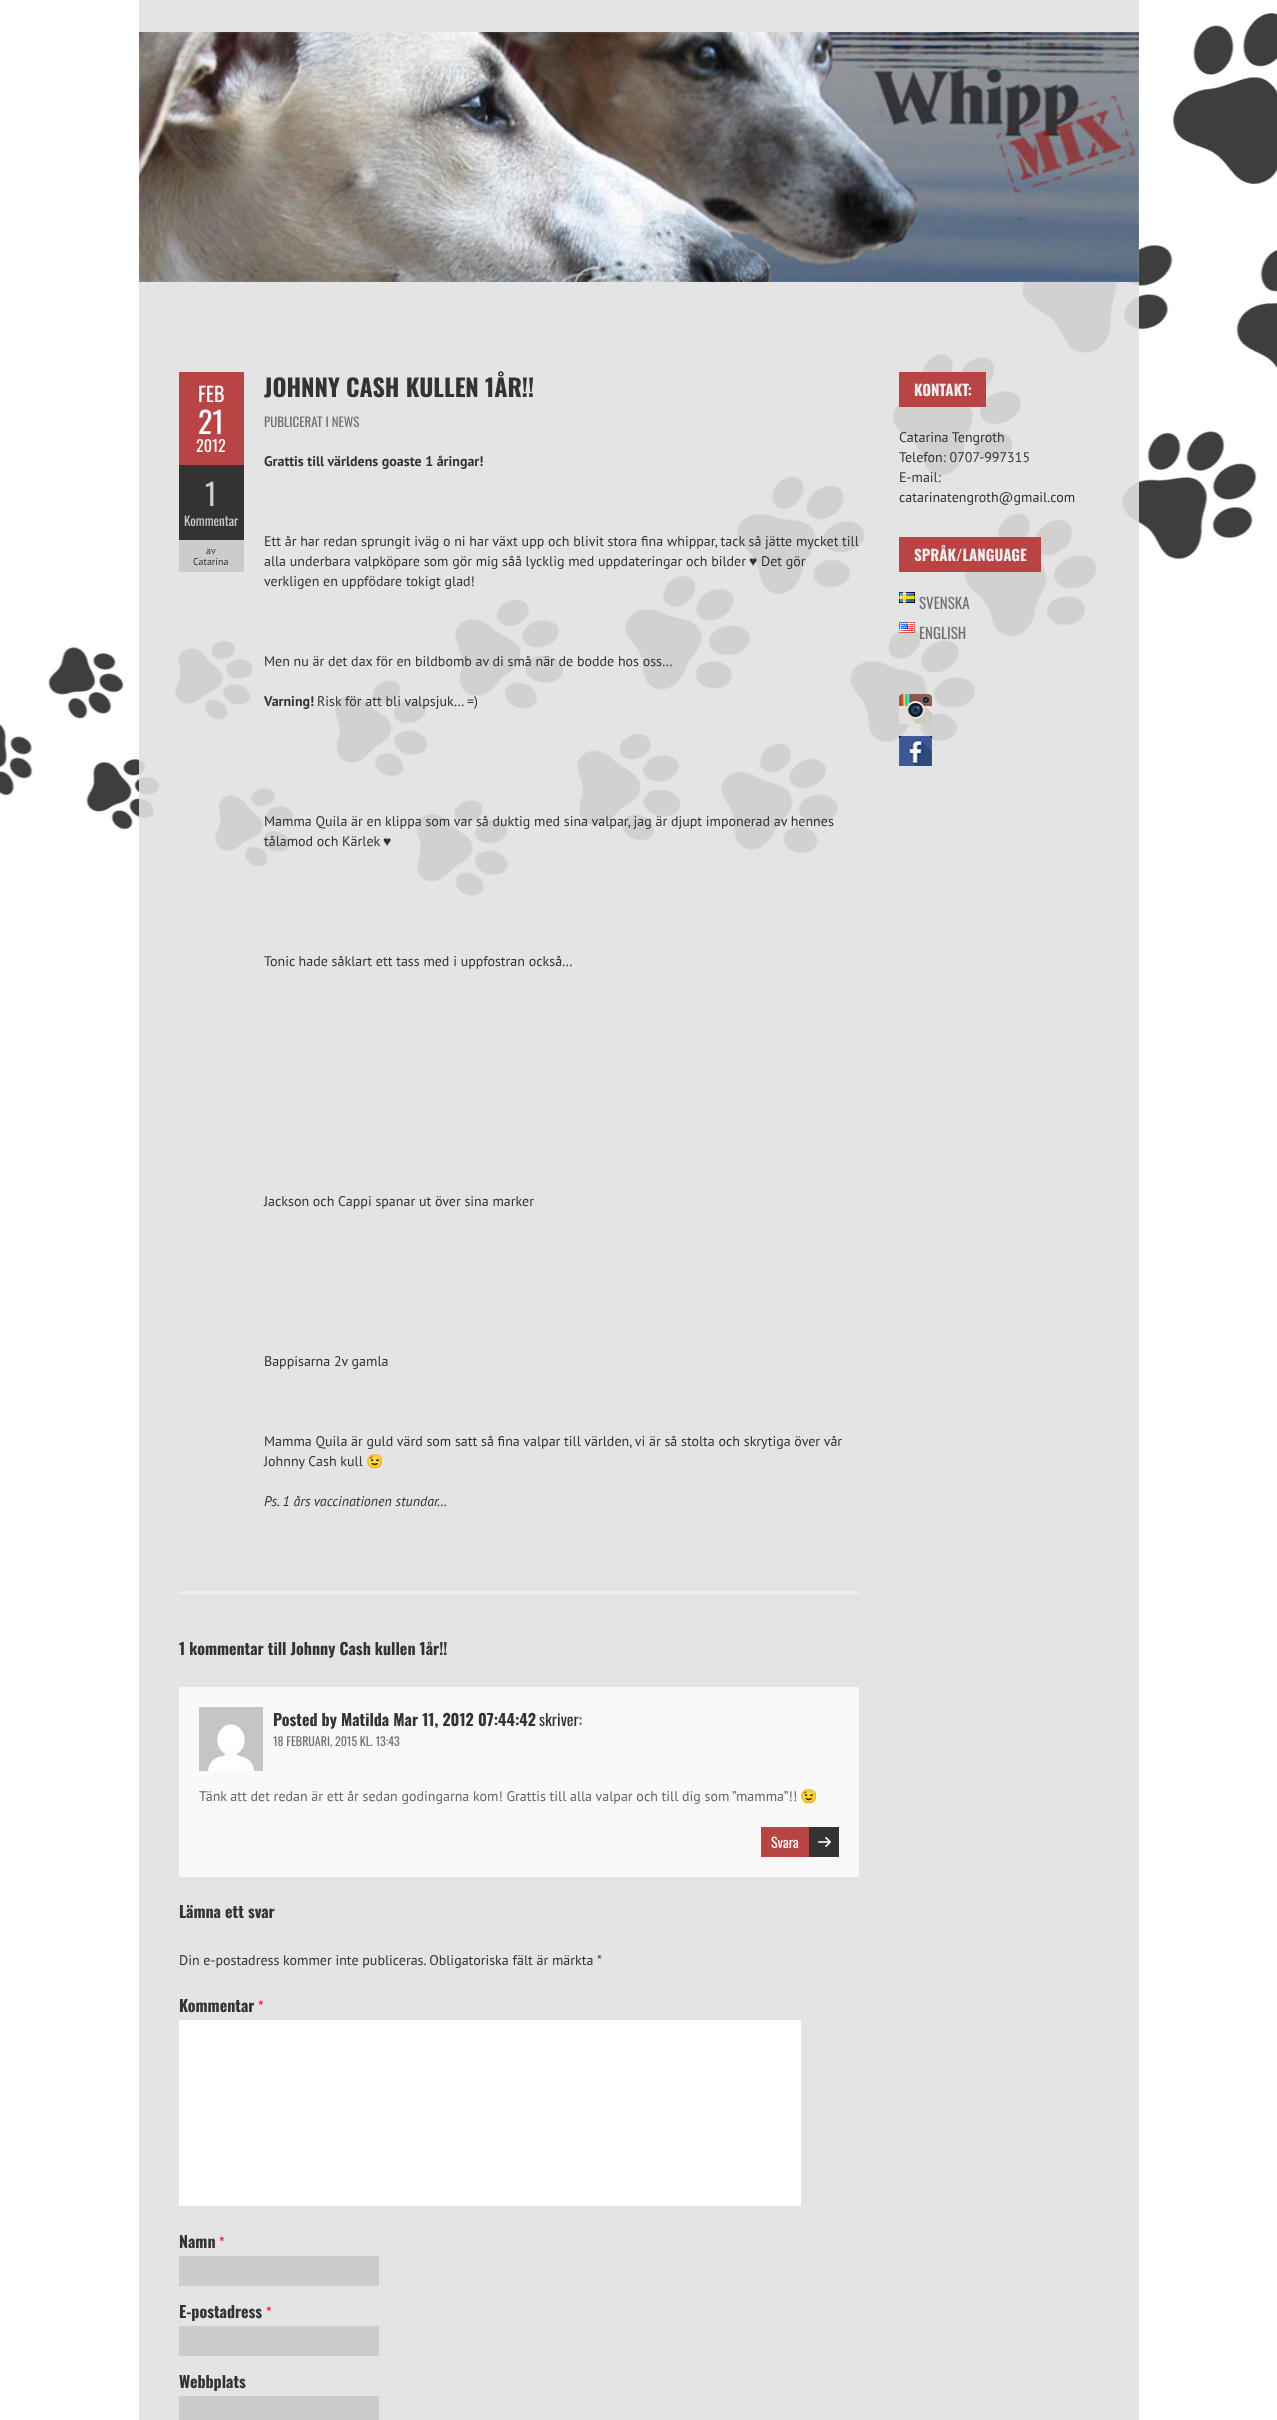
async function draw(canvas) {
  canvas.width = 1277;
  canvas.height = 2420;
  const ctx = canvas.getContext('2d');
  ctx.miterLimit = 4;
  ctx.fontKerning = 'normal';
  function label(s, x, y, font, color) {
    ctx.font = font;
    ctx.fillStyle = color;
    ctx.fillText(s, x, y);
  }
  function rect(x, y, w, h, color) {
    ctx.fillStyle = color;
    ctx.fillRect(x, y, w, h);
  }
  async function image(src, x, y, w, h) {
    const img = new Image();
    img.src = src;
    await img.decode();
    ctx.drawImage(img, x, y, w, h);
  }

  rect(0, 0, 1277, 2420, '#fff');
  await image('assets/img1.png', 0, 13, 1277, 884);
  rect(139, 0, 1000, 2420, '#e1e1e1e6');
  await image('assets/img2.png', 139, 32, 1000, 250);
  rect(179, 372, 65, 93, '#ba4343');
  label('FEB', 198, 402, '20px Oswald', '#fff');
  label('21', 198, 434, '30px Oswald', '#fff');
  label('2012', 196, 452, '16px Oswald', '#fff');
  rect(179, 465, 65, 75, '#333');
  label('1', 205, 506, '30px Oswald', '#ccc');
  label('Kommentar', 184, 526, '13px Oswald', '#ccc');
  rect(179, 540, 65, 32, '#ccc');
  label('av', 206, 554, '10px PT Sans', '#333');
  label('Catarina', 193, 565, '10px PT Sans', '#333');
  label('JOHNNY CASH KULLEN 1ÅR!!', 264, 397, 'bold 24px Oswald', '#333');
  label('PUBLICERAT I NEWS', 264, 427, '13px Oswald', '#707070');
  label('Grattis till världens goaste 1 åringar!', 264, 466, 'bold 14px PT Sans', '#333');
  label('Ett år har redan sprungit iväg o ni har växt upp och blivit stora fina whippar, tack så jätte mycket till', 264, 546, '14px PT Sans', '#333');
  label('alla underbara valpköpare som gör mig såå lycklig med uppdateringar och bilder', 264, 566, '14px PT Sans', '#333');
  label('♥', 749, 566, '14px Liberation Sans', '#333');
  label('Det gör', 761, 566, '14px PT Sans', '#333');
  label('verkligen en uppfödare tokigt glad!', 264, 586, '14px PT Sans', '#333');
  label('Men nu är det dax för en bildbomb av di små när de bodde hos oss…', 264, 666, '14px PT Sans', '#333');
  label('Varning!', 264, 706, 'bold 14px PT Sans', '#333');
  label('Risk för att bli valpsjuk… =)', 317, 706, '14px PT Sans', '#333');
  label('Mamma Quila är en klippa som var så duktig med sina valpar, jag är djupt imponerad av hennes', 264, 826, '14px PT Sans', '#333');
  label('tålamod och Kärlek', 264, 846, '14px PT Sans', '#333');
  label('♥', 383, 846, '14px Liberation Sans', '#333');
  label('Tonic hade såklart ett tass med i uppfostran också…', 264, 966, '14px PT Sans', '#333');
  label('Jackson och Cappi spanar ut över sina marker', 264, 1206, '14px PT Sans', '#333');
  label('Bappisarna 2v gamla', 264, 1366, '14px PT Sans', '#333');
  label('Mamma Quila är guld värd som satt så fina valpar till världen, vi är så stolta och skrytiga över vår', 264, 1446, '14px PT Sans', '#333');
  label('Johnny Cash kull', 264, 1466, '14px PT Sans', '#333');
  label('😉', 366, 1466, '14px Noto Color Emoji', '#333');
  label('Ps. 1 års vaccinationen stundar…', 264, 1506, 'italic 14px PT Sans', '#333');
  rect(179, 1591, 680, 3, '#eee');
  label('1 kommentar till Johnny Cash kullen 1år!!', 179, 1655, 'bold 16px Oswald', '#333');
  rect(179, 1687, 680, 190, '#f9f9f9');
  await image('assets/img3.png', 199, 1707, 64, 64);
  label('Posted by Matilda Mar 11, 2012 07:44:42', 273, 1726, 'bold 16px Oswald', '#333');
  label('skriver:', 539, 1726, '16px Oswald', '#333');
  label('18 FEBRUARI, 2015 KL. 13:43', 273, 1746, '12px Oswald', '#707070');
  label('Tänk att det redan är ett år sedan godingarna kom! Grattis till alla valpar och till dig som ”mamma”!!', 199, 1801, '14px PT Sans', '#666');
  label('😉', 800, 1801, '14px Noto Color Emoji', '#666');
  rect(761, 1827, 48, 30, '#ba4343');
  await image('assets/img4.png', 809, 1827, 30, 30);
  label('Svara', 771, 1848, '14px Oswald', '#fff');
  label('Lämna ett svar', 179, 1918, 'bold 16px Oswald', '#333');
  label('Din e-postadress kommer inte publiceras. Obligatoriska fält är märkta *', 179, 1965, '14px PT Sans', '#333');
  label('Kommentar', 179, 2012, 'bold 16px Oswald', '#333');
  label('*', 258, 2011, '13px Oswald', '#f00');
  rect(179, 2020, 622, 186, '#fff');
  label('Namn', 179, 2248, 'bold 16px Oswald', '#333');
  label('*', 219, 2247, '13px Oswald', '#f00');
  rect(179, 2256, 200, 30, '#ccc');
  label('E-postadress', 179, 2318, 'bold 16px Oswald', '#333');
  label('*', 266, 2317, '13px Oswald', '#f00');
  rect(179, 2326, 200, 30, '#ccc');
  label('Webbplats', 179, 2388, 'bold 16px Oswald', '#333');
  rect(179, 2396, 200, 24, '#ccc');
  rect(899, 372, 87, 35, '#ba4343');
  label('KONTAKT:', 914, 396, 'bold 15px Oswald', '#eee');
  label('Catarina Tengroth', 899, 442, '14px PT Sans', '#333');
  label('Telefon: 0707-997315', 899, 462, '14px PT Sans', '#333');
  label('E-mail:', 899, 482, '14px PT Sans', '#333');
  label('catarinatengroth@gmail.com', 899, 502, '14px PT Sans', '#333');
  rect(899, 537, 142, 35, '#ba4343');
  label('SPRÅK/LANGUAGE', 914, 561, 'bold 15px Oswald', '#eee');
  await image('assets/img5.png', 899, 592, 16, 11);
  label('SVENSKA', 919, 609, '15px Oswald', '#707070');
  await image('assets/img6.png', 899, 622, 16, 11);
  label('ENGLISH', 919, 639, '15px Oswald', '#707070');
  await image('assets/img7.png', 899, 694, 33, 30);
  await image('assets/img8.png', 899, 736, 33, 30);
}

draw(document.querySelector('canvas'));
